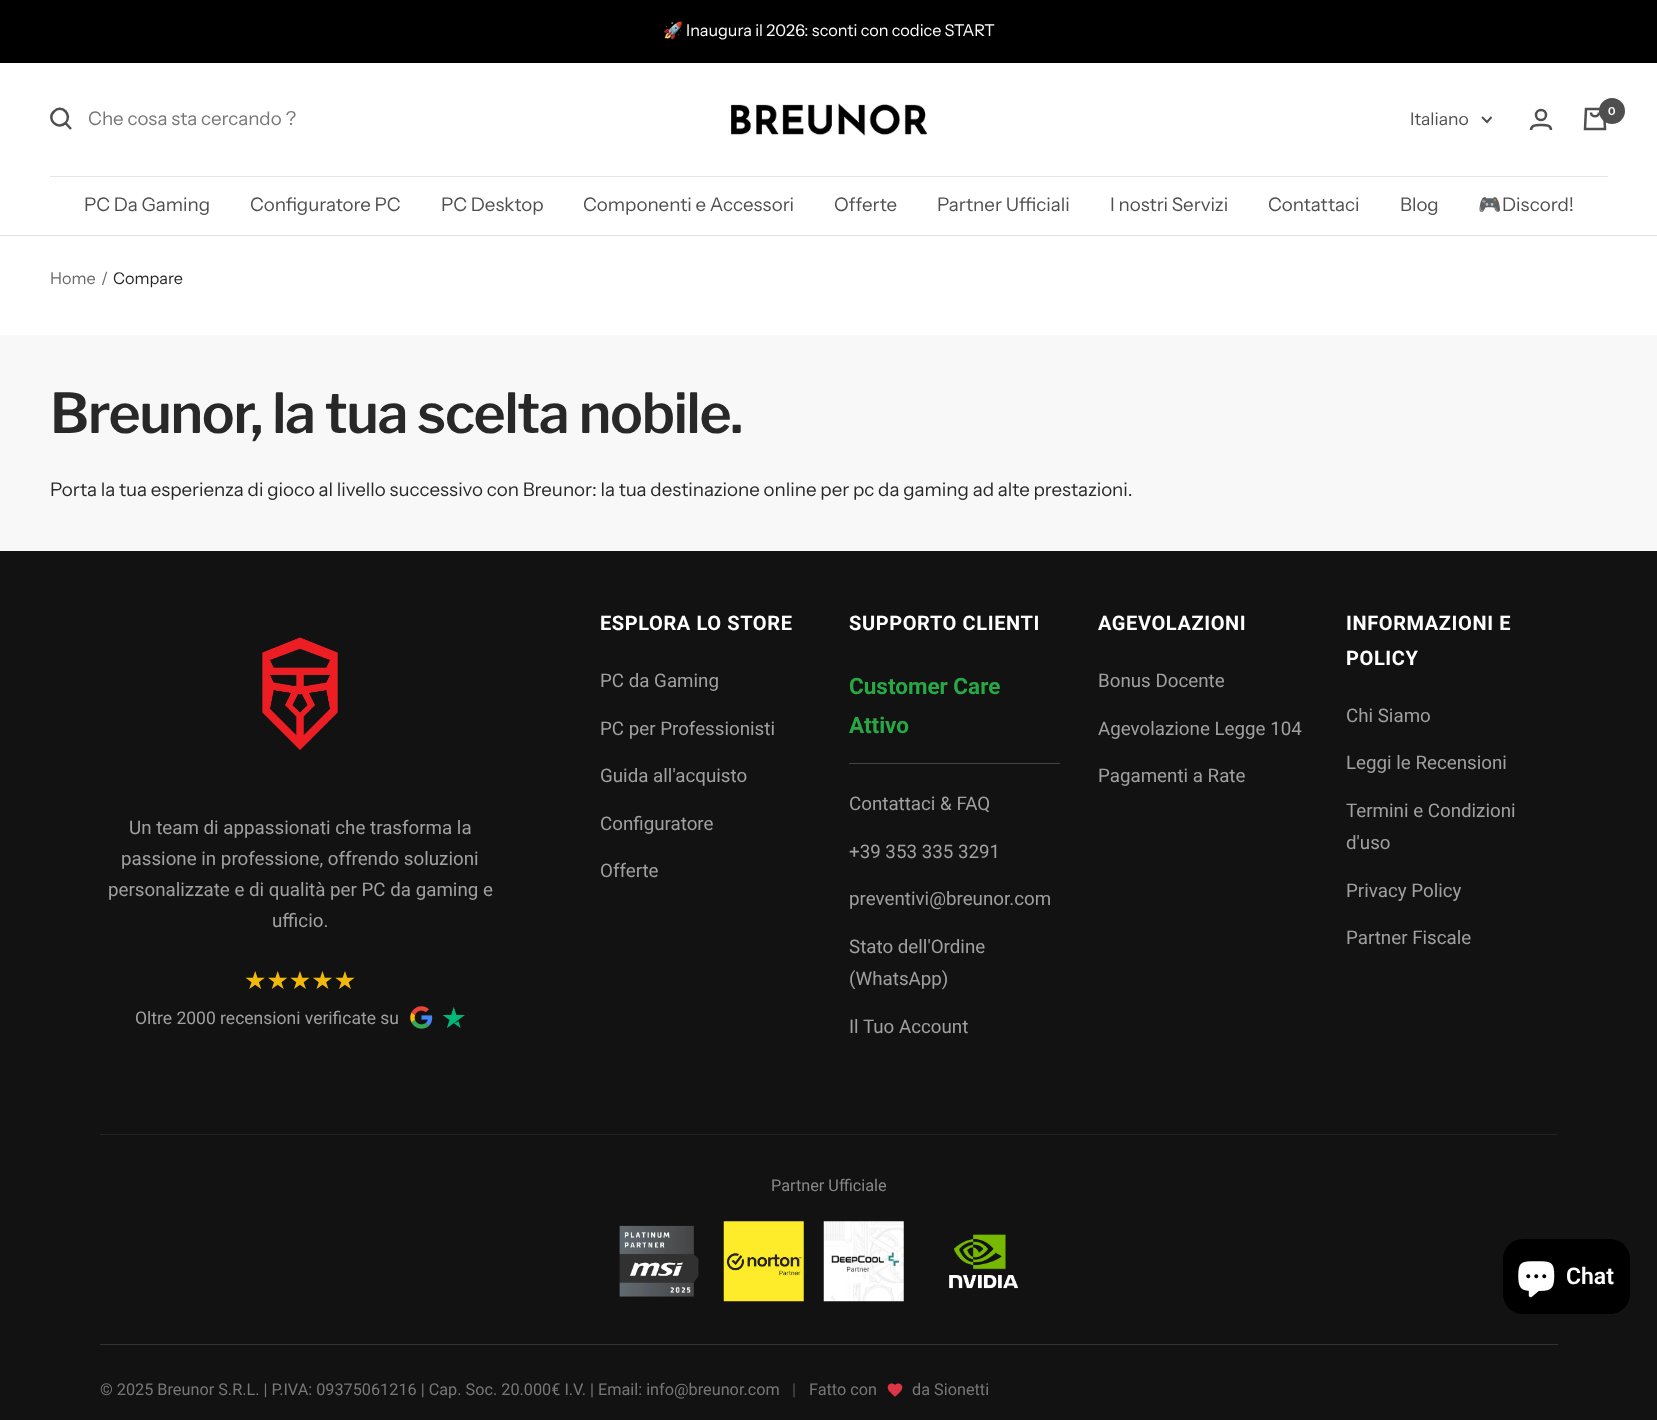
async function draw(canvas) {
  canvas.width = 1657;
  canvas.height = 1420;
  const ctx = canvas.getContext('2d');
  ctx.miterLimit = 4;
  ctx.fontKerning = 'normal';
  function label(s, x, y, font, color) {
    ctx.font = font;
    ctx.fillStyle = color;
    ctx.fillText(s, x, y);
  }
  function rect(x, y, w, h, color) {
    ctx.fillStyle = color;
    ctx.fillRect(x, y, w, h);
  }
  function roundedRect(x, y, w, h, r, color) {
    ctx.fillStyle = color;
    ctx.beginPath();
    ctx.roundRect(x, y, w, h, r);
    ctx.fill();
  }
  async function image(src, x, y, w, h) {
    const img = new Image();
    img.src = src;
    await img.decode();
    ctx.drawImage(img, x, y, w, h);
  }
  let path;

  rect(0, 0, 1657, 1420, '#fff');
  rect(0, 0, 1657, 63, '#000');
  label('🚀', 663, 36, '16.25px Noto Color Emoji', '#fff');
  label('Inaugura il 2026: sconti con codice START', 686, 36, '16.25px Instrument Sans', '#fff');
  rect(0, 335, 1657, 216, '#f8f8f8');
  ctx.save();
  ctx.beginPath();
  ctx.rect(0, 551, 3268, 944);
  ctx.clip();
  ctx.strokeStyle = '#121212';
  ctx.lineWidth = 1658;
  ctx.strokeRect(-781, -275, 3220, 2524);
  ctx.restore();
  ctx.fillStyle = '#dfdfdf';
  path = new Path2D('M0 235V236H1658V64V235Z');
  ctx.fill(path);
  path = new Path2D('M65.5 123C73 115 61.5 103.5 54 111.5C46 119 57.5 130.5 65.5 123ZM65.5 123L71 129');
  ctx.strokeStyle = '#504f4f';
  ctx.lineWidth = 2.5;
  ctx.stroke(path);
  label('Che cosa sta cercando ?', 88, 125, '18.75px Instrument Sans', '#777');
  await image('assets/img1.png', 731, 103, 196, 33);
  ctx.beginPath();
  ctx.arc(1541, 115, 5, 0, 2 * Math.PI);
  ctx.stroke();
  path = new Path2D('M1531 130C1531 124.5 1537.5 125 1541 125C1545 125 1551 124.5 1551 130');
  ctx.stroke(path);
  path = new Path2D('M1586 109H1604L1605 129H1585ZM1591 112.5C1591 117.5 1599 117.5 1599 112.5');
  ctx.stroke(path);
  ctx.fillStyle = '#504f4f';
  ctx.beginPath();
  ctx.arc(1612, 111, 13, 0, 2 * Math.PI);
  ctx.fill();
  label('0', 1608, 115, '600 11px Instrument Sans', '#fff');
  label('Italiano', 1410, 125, '17.5px Instrument Sans', '#504f4f');
  path = new Path2D('M1482 117L1487 122L1491.5 117');
  ctx.lineWidth = 1.9;
  ctx.stroke(path);
  rect(50, 176, 1558, 1, '#e5e5e5');
  label('PC Da Gaming', 84, 211, '18.75px Instrument Sans', '#504f4f');
  label('Configuratore PC', 250, 211, '18.75px Instrument Sans', '#504f4f');
  label('PC Desktop', 441, 211, '18.75px Instrument Sans', '#504f4f');
  label('Componenti e Accessori', 583, 211, '18.75px Instrument Sans', '#504f4f');
  label('Offerte', 834, 211, '18.75px Instrument Sans', '#504f4f');
  label('Partner Ufficiali', 937, 211, '18.75px Instrument Sans', '#504f4f');
  label('I nostri Servizi', 1110, 211, '18.75px Instrument Sans', '#504f4f');
  label('Contattaci', 1268, 211, '18.75px Instrument Sans', '#504f4f');
  label('Blog', 1400, 211, '18.75px Instrument Sans', '#504f4f');
  label('🎮', 1478, 211, '18.75px Noto Color Emoji', '#504f4f');
  label('Discord!', 1502, 211, '18.75px Instrument Sans', '#504f4f');
  label('Home', 50, 284, '16.25px Instrument Sans', '#696969');
  label('/', 101, 284, '16.25px Instrument Sans', '#696969');
  label('Compare', 113, 284, '16.25px Instrument Sans', '#282828');
  ctx.letterSpacing = '-1.25px';
  label('Breunor, la tua scelta nobile.', 50, 433, '600 55px Libre Franklin', '#282828');
  ctx.letterSpacing = '0px';
  label('Porta la tua esperienza di gioco al livello successivo con Breunor: la tua destinazione online per pc da gaming ad alte prestazioni.', 50, 496, '18.75px Instrument Sans', '#282828');
  rect(48, 554, 1562, 866, '#121212');
  rect(100, 1344, 1458, 1, '#333');
  await image('assets/img2.png', 262, 637, 76, 113);
  label('Un team di appassionati che trasforma la', 129, 834, '18.75px Roboto', '#a0a0a0');
  label('passione in professione, offrendo soluzioni', 121, 865, '18.75px Roboto', '#a0a0a0');
  label('personalizzate e di qualità per PC da gaming e', 108, 896, '18.75px Roboto', '#a0a0a0');
  label('ufficio.', 272, 927, '18.75px Roboto', '#a0a0a0');
  label('★★★★★', 244, 989, '25px DejaVu Sans', '#f0b90b');
  label('Oltre 2000 recensioni verificate su', 135, 1024, '17.5px Roboto', '#a0a0a0');
  await image('assets/img3.png', 410, 1006, 23, 23);
  await image('assets/img4.png', 443, 1007, 22, 21);
  ctx.letterSpacing = '0.6px';
  label('ESPLORA LO STORE', 600, 630, 'bold 20px Roboto', '#fff');
  ctx.letterSpacing = '0px';
  label('PC da Gaming', 600, 687, '18.75px Roboto', '#a0a0a0');
  label('PC per Professionisti', 600, 735, '18.75px Roboto', '#a0a0a0');
  label('Guida all\'acquisto', 600, 782, '18.75px Roboto', '#a0a0a0');
  label('Configuratore', 600, 830, '18.75px Roboto', '#a0a0a0');
  label('Offerte', 600, 877, '18.75px Roboto', '#a0a0a0');
  ctx.letterSpacing = '0.6px';
  label('SUPPORTO CLIENTI', 849, 630, 'bold 20px Roboto', '#fff');
  rect(849, 763, 211, 1, '#444');
  ctx.letterSpacing = '0px';
  label('Customer Care', 849, 694, 'bold 22.5px Roboto', '#28a745');
  label('Attivo', 849, 733, 'bold 22.5px Roboto', '#28a745');
  label('Contattaci & FAQ', 849, 810, '18.75px Roboto', '#a0a0a0');
  label('+39 353 335 3291', 849, 858, '18.75px Roboto', '#a0a0a0');
  label('preventivi@breunor.com', 849, 905, '18.75px Roboto', '#a0a0a0');
  label('Stato dell\'Ordine', 849, 953, '18.75px Roboto', '#a0a0a0');
  label('(WhatsApp)', 849, 985, '18.75px Roboto', '#a0a0a0');
  label('Il Tuo Account', 849, 1033, '18.75px Roboto', '#a0a0a0');
  ctx.letterSpacing = '0.6px';
  label('AGEVOLAZIONI', 1098, 630, 'bold 20px Roboto', '#fff');
  ctx.letterSpacing = '0px';
  label('Bonus Docente', 1098, 687, '18.75px Roboto', '#a0a0a0');
  label('Agevolazione Legge 104', 1098, 735, '18.75px Roboto', '#a0a0a0');
  label('Pagamenti a Rate', 1098, 782, '18.75px Roboto', '#a0a0a0');
  ctx.letterSpacing = '0.6px';
  label('INFORMAZIONI E', 1346, 630, 'bold 20px Roboto', '#fff');
  label('POLICY', 1346, 665, 'bold 20px Roboto', '#fff');
  ctx.letterSpacing = '0px';
  label('Chi Siamo', 1346, 722, '18.75px Roboto', '#a0a0a0');
  label('Leggi le Recensioni', 1346, 769, '18.75px Roboto', '#a0a0a0');
  label('Termini e Condizioni', 1346, 817, '18.75px Roboto', '#a0a0a0');
  label('d\'uso', 1346, 849, '18.75px Roboto', '#a0a0a0');
  label('Privacy Policy', 1346, 897, '18.75px Roboto', '#a0a0a0');
  label('Partner Fiscale', 1346, 944, '18.75px Roboto', '#a0a0a0');
  rect(100, 1134, 1458, 1, '#222');
  label('Partner Ufficiale', 771, 1191, '16.25px Roboto', '#888');
  await image('assets/img5.png', 619, 1225, 80, 72);
  await image('assets/img6.png', 723, 1221, 81, 81);
  await image('assets/img7.png', 823, 1221, 81, 81);
  await image('assets/img8.png', 949, 1234, 70, 55);
  label('© 2025 Breunor S.R.L. | P.IVA: 09375061216 | Cap. Soc. 20.000€ I.V. | Email: info@breunor.com', 100, 1395, '16.25px Roboto', '#777');
  label('|', 792, 1395, '16.25px Roboto', '#555');
  label('Fatto con', 809, 1395, '16.25px Roboto', '#777');
  await image('assets/img9.png', 887, 1383, 16, 14);
  label('da Sionetti', 912, 1395, '16.25px Roboto', '#777');
  roundedRect(1503, 1239, 127, 75, 20, '#000');
  await image('assets/img10.png', 1518, 1261, 37, 37);
  label('Chat', 1566, 1284, '600 23px Roboto', '#fff');
}

draw(document.querySelector('canvas'));
